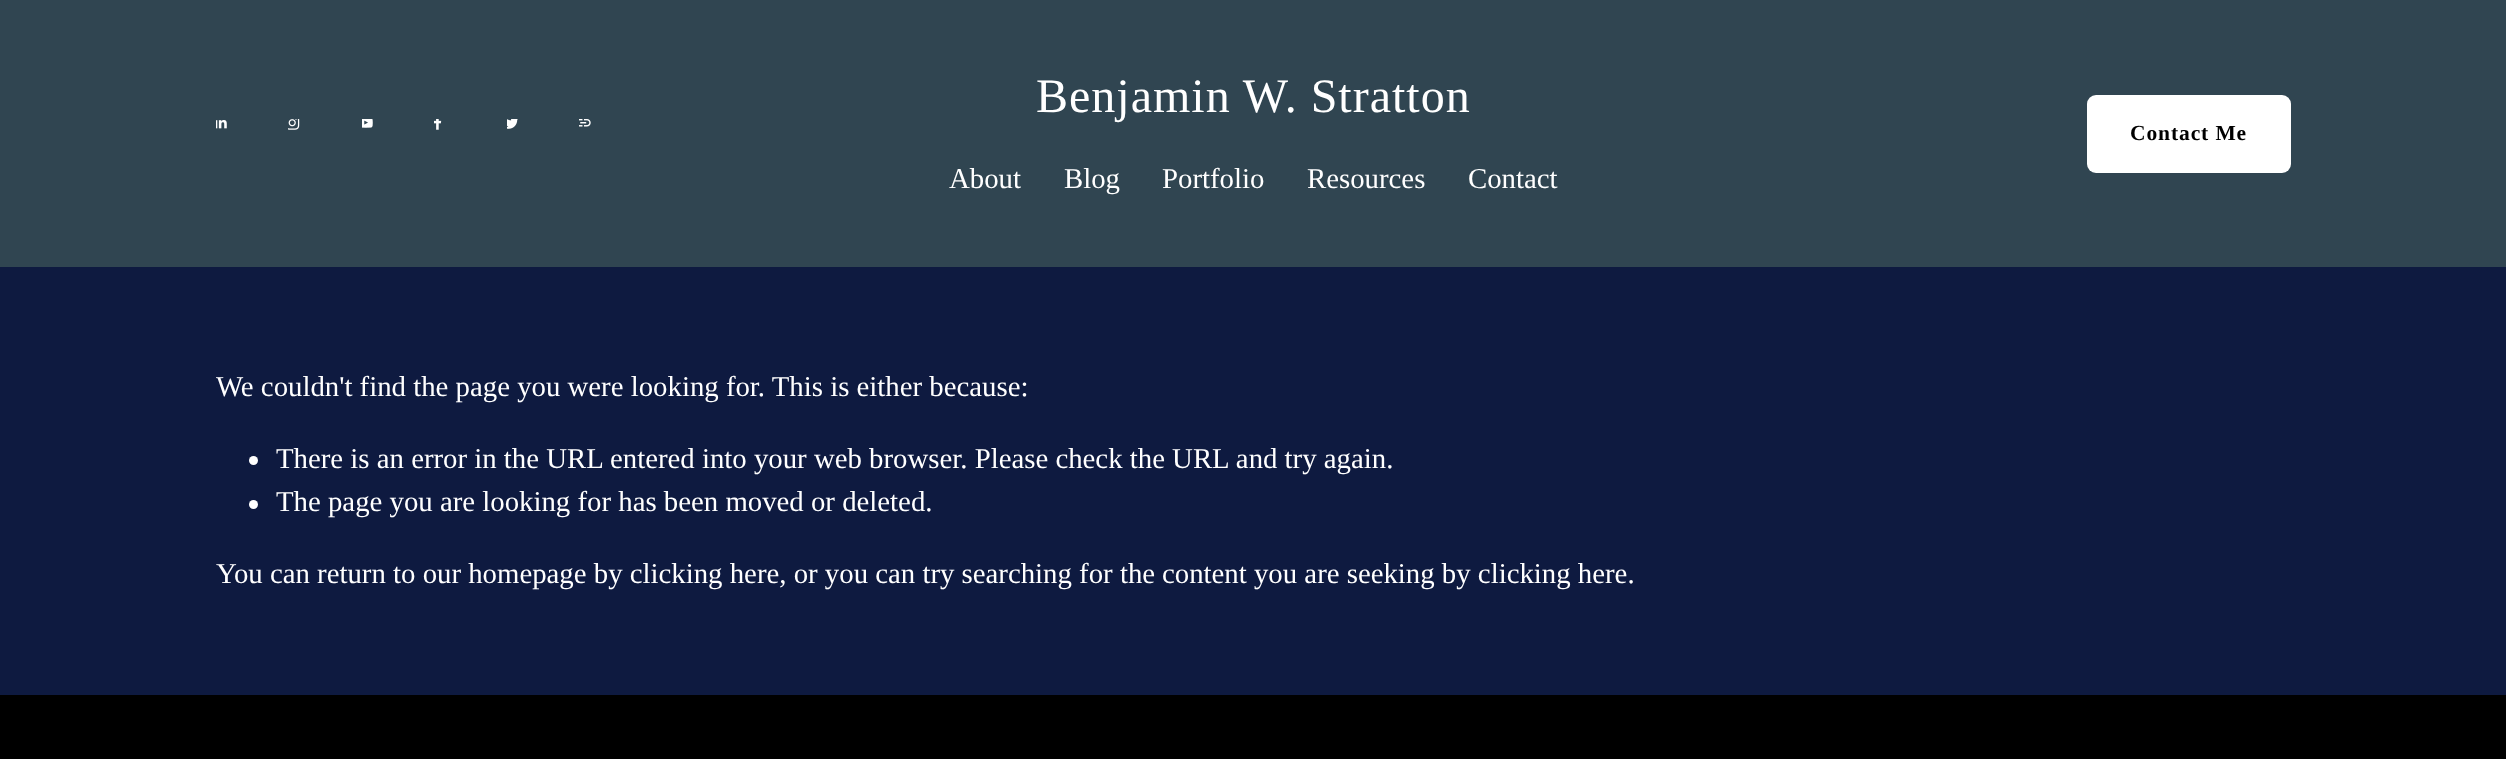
async function draw(canvas) {
  canvas.width = 2506;
  canvas.height = 759;
  const ctx = canvas.getContext('2d');
  ctx.miterLimit = 4;
  ctx.fontKerning = 'normal';
  function label(s, x, y, font, color) {
    ctx.font = font;
    ctx.fillStyle = color;
    ctx.fillText(s, x, y);
  }
  function rect(x, y, w, h, color) {
    ctx.fillStyle = color;
    ctx.fillRect(x, y, w, h);
  }
  function roundedRect(x, y, w, h, r, color) {
    ctx.fillStyle = color;
    ctx.beginPath();
    ctx.roundRect(x, y, w, h, r);
    ctx.fill();
  }
  async function image(src, x, y, w, h) {
    const img = new Image();
    img.src = src;
    await img.decode();
    ctx.drawImage(img, x, y, w, h);
  }

  rect(0, 0, 2506, 759, '#0e1a40');
  rect(0, 0, 2506, 267, '#304551');
  await image('assets/img1.png', 216, 120, 11, 9);
  await image('assets/img2.png', 288, 119, 12, 11);
  await image('assets/img3.png', 362, 119, 11, 9);
  await image('assets/img4.png', 434, 119, 8, 11);
  await image('assets/img5.png', 507, 119, 11, 10);
  await image('assets/img6.png', 579, 119, 12, 8);
  ctx.letterSpacing = '1px';
  label('Benjamin W. Stratton', 1036, 112, '48px Liberation Serif', '#fff');
  ctx.letterSpacing = '0px';
  label('About', 949, 188, '28.8px Liberation Serif', '#fff');
  label('Blog', 1064, 188, '28.8px Liberation Serif', '#fff');
  label('Portfolio', 1162, 188, '28.8px Liberation Serif', '#fff');
  label('Resources', 1307, 188, '28.8px Liberation Serif', '#fff');
  label('Contact', 1468, 188, '28.8px Liberation Serif', '#fff');
  roundedRect(2087, 95, 204, 78, 9, '#fff');
  ctx.letterSpacing = '0.9px';
  label('Contact Me', 2130, 140, 'bold 21.5px Liberation Serif', '#000');
  ctx.letterSpacing = '0px';
  label('We couldn\'t find the page you were looking for. This is either because:', 216, 396, '28.8px Liberation Serif', '#fff');
  ctx.beginPath();
  ctx.arc(253.5, 460.5, 4.5, 0, 2 * Math.PI);
  ctx.fill();
  label('There is an error in the URL entered into your web browser. Please check the URL and try again.', 276, 468, '28.8px Liberation Serif', '#fff');
  ctx.beginPath();
  ctx.arc(253.5, 504.5, 4.5, 0, 2 * Math.PI);
  ctx.fill();
  label('The page you are looking for has been moved or deleted.', 276, 511, '28.8px Liberation Serif', '#fff');
  label('You can return to our homepage by clicking here, or you can try searching for the', 216, 583, '28.8px Liberation Serif', '#fff');
  label('content you are seeking by clicking here.', 1162, 583, '28.8px Liberation Serif', '#fff');
  rect(0, 695, 2506, 64, '#000');
}

draw(document.querySelector('canvas'));
